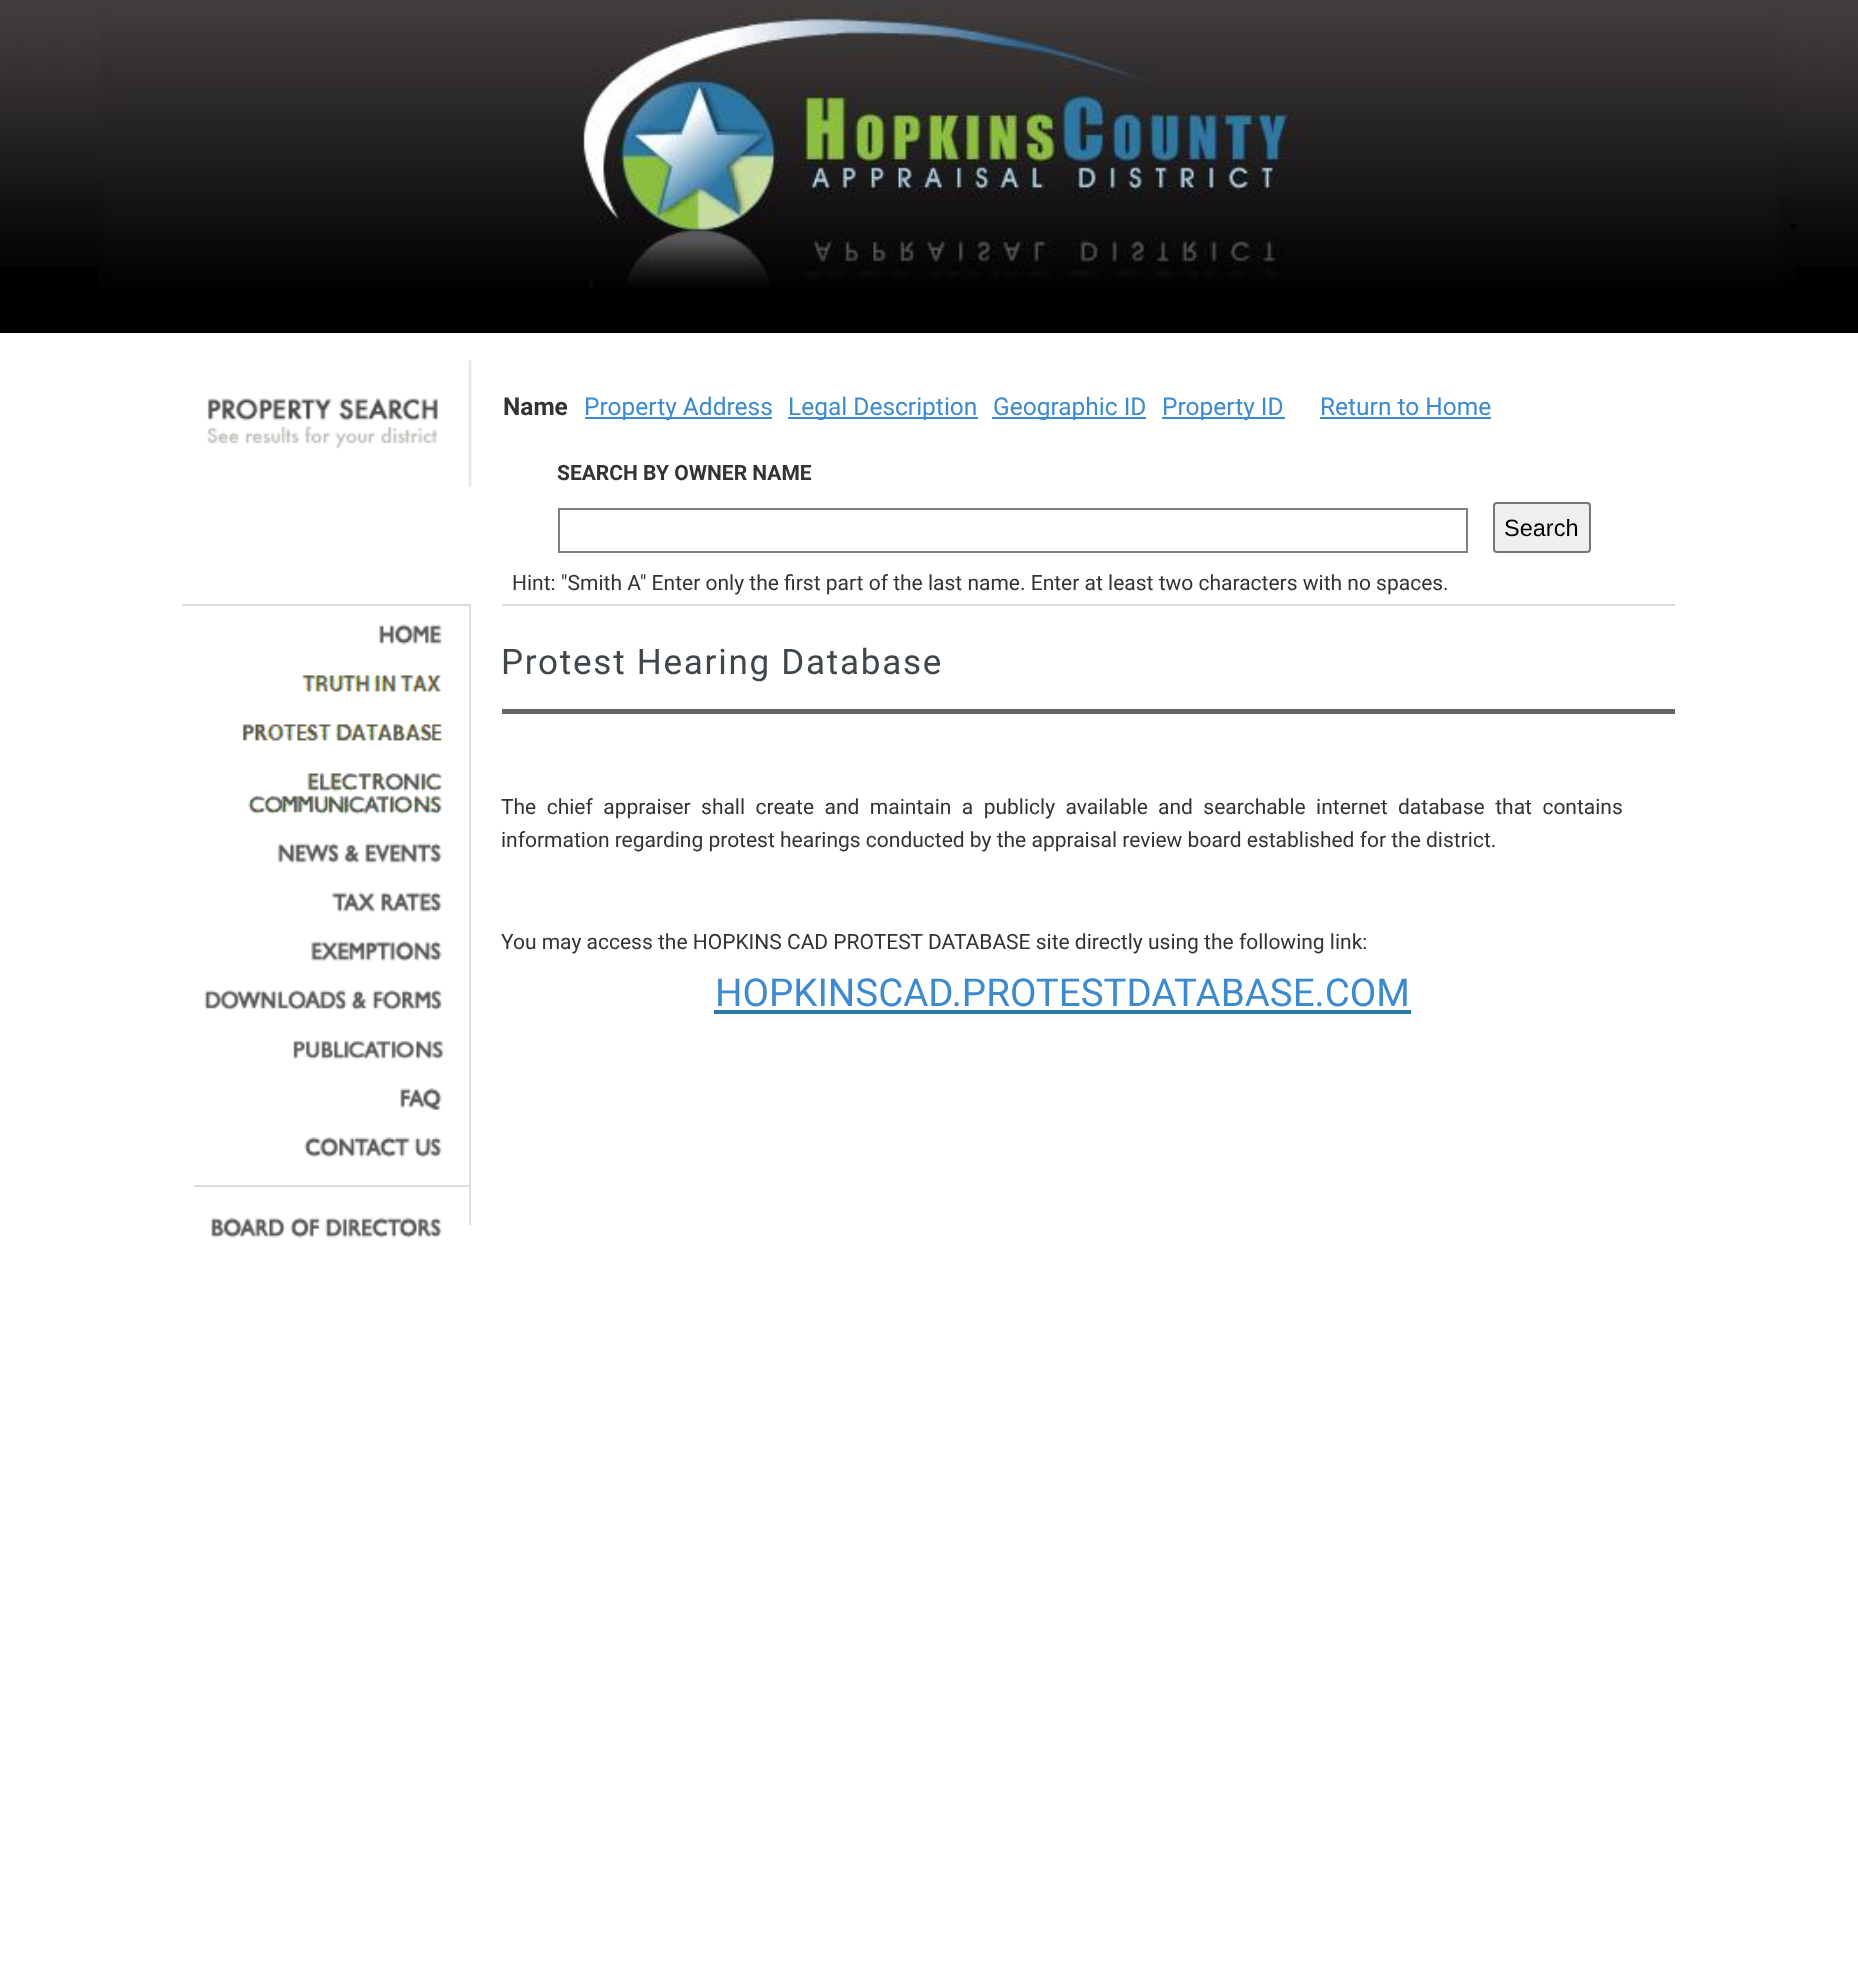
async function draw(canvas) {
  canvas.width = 1858;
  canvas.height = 1988;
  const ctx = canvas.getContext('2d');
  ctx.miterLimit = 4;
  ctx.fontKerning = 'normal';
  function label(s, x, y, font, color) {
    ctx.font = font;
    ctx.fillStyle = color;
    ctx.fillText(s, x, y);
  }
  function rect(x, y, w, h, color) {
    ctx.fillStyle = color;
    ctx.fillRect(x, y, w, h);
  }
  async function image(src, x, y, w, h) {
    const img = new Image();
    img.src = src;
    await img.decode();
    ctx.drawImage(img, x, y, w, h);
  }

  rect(0, 0, 1858, 1988, '#fff');
  rect(0, 266, 1858, 67, '#000');
  await image('assets/img1.png', 0, 0, 1858, 266);
  await image('assets/img2.png', 98, 0, 1698, 290);
  await image('assets/img3.png', 206, 360, 266, 127);
  label('Name', 503, 415, 'bold 24.5px Roboto', '#333');
  rect(585, 417, 187, 2, '#3e8acf');
  label('Property Address', 584, 415, '24.5px Roboto', '#3e8acf');
  rect(788, 417, 190, 2, '#3e8acf');
  label('Legal Description', 788, 415, '24.5px Roboto', '#3e8acf');
  rect(992, 417, 154, 2, '#3e8acf');
  label('Geographic ID', 993, 415, '24.5px Roboto', '#3e8acf');
  rect(1162, 417, 123, 2, '#3e8acf');
  label('Property ID', 1162, 415, '24.5px Roboto', '#3e8acf');
  label('Return to Home', 1320, 415, '24.5px Roboto', '#3e8acf');
  rect(1320, 417, 171, 2, '#3e8acf');
  label('SEARCH BY OWNER NAME', 557, 480, 'bold 21px Roboto', '#333');
  ctx.strokeStyle = '#808080';
  ctx.lineWidth = 2;
  ctx.strokeRect(559, 509, 908, 43);
  ctx.fillStyle = '#efefef';
  ctx.beginPath();
  ctx.roundRect(1494, 503, 96, 49, 3);
  ctx.fill();
  ctx.strokeStyle = '#767676';
  ctx.stroke();
  label('Search', 1504, 536, '23.5px Liberation Sans', '#000');
  label('Hint: "Smith A" Enter only the first part of the last name. Enter at least two characters with no spaces.', 512, 590, '21px Roboto', '#333');
  rect(182, 604, 287, 2, '#dcdcdc');
  await image('assets/img4.png', 379, 624, 63, 21);
  await image('assets/img5.png', 302, 675, 140, 17);
  await image('assets/img6.png', 242, 724, 200, 17);
  await image('assets/img7.png', 248, 773, 194, 42);
  await image('assets/img8.png', 277, 843, 165, 21);
  await image('assets/img9.png', 332, 892, 110, 21);
  await image('assets/img10.png', 311, 941, 131, 21);
  await image('assets/img11.png', 204, 990, 238, 21);
  await image('assets/img12.png', 293, 1040, 151, 20);
  await image('assets/img13.png', 400, 1088, 42, 22);
  await image('assets/img14.png', 304, 1137, 138, 21);
  rect(194, 1185, 275, 2, '#dcdcdc');
  await image('assets/img15.png', 211, 1217, 231, 21);
  rect(469, 604, 2, 621, '#dcdcdc');
  rect(502, 604, 1173, 2, '#dcdcdc');
  ctx.letterSpacing = '1.75px';
  label('Protest Hearing Database', 501, 674, '35px Roboto', '#40474b');
  rect(502, 709, 1173, 5, '#666');
  ctx.letterSpacing = '0px';
  ctx.wordSpacing = '5.25px';
  label('The chief appraiser shall create and maintain a publicly available', 501, 814, '21px Roboto', '#333');
  label('and searchable internet database that contains', 1158, 814, '21px Roboto', '#333');
  ctx.wordSpacing = '0px';
  label('information regarding protest hearings conducted by the appraisal review board established for the district.', 501, 847, '21px Roboto', '#333');
  label('You may access the HOPKINS CAD PROTEST DATABASE site directly using the following link:', 501, 949, '21px Roboto', '#333');
  label('HOPKINSCAD.PROTESTDATABASE.COM', 715, 1006, '38.5px Roboto', '#3e8acf');
  rect(714, 1010, 697, 4, '#2e78a6');
}

draw(document.querySelector('canvas'));
